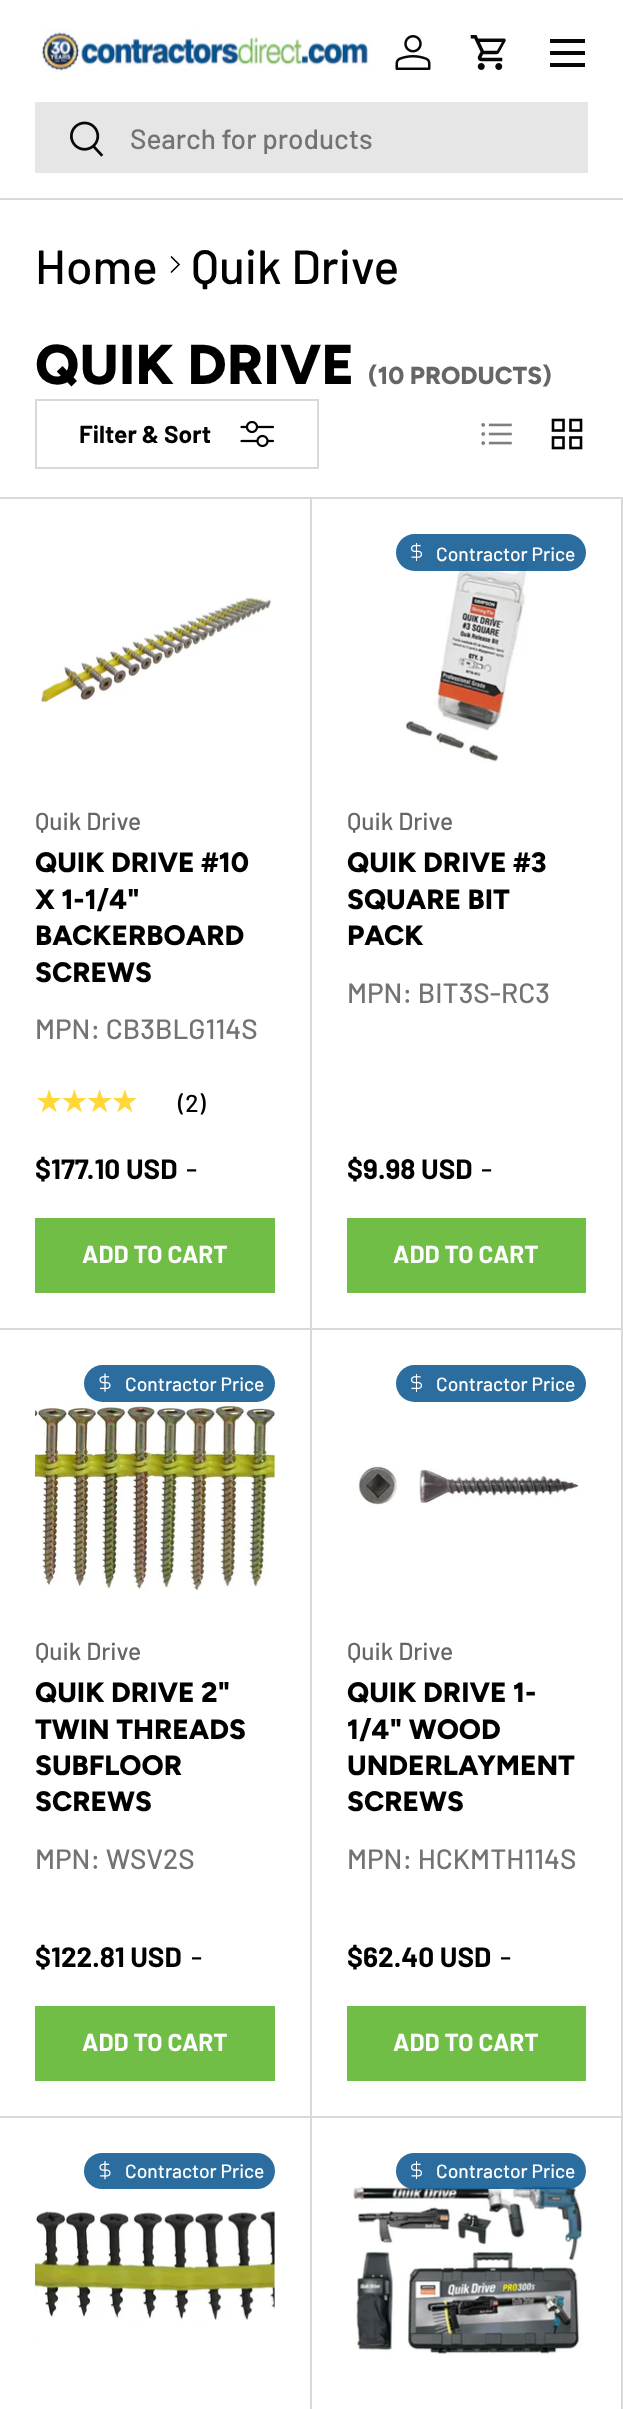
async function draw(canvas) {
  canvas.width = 623;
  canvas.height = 2409;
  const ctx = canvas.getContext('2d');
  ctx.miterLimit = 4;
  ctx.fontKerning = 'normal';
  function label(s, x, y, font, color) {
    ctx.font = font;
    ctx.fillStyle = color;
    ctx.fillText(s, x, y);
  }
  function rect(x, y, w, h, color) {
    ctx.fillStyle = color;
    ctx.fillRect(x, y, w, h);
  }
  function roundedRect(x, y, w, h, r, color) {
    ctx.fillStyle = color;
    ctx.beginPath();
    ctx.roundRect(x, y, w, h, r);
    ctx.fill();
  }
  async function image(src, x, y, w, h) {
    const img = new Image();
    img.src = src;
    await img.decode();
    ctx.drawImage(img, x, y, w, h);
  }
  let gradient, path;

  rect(0, 0, 623, 2409, '#fff');
  rect(0, 198, 623, 2, '#dadada');
  await image('assets/img1.png', 40, 28, 330, 45);
  await image('assets/img2.png', 395, 35, 36, 35);
  await image('assets/img3.png', 470, 35, 36, 35);
  rect(550, 39, 35, 4, '#070707');
  rect(550, 63, 35, 4, '#070707');
  rect(550, 51, 35, 4, '#070707');
  rect(35, 102, 553, 71, '#e6e6e6');
  await image('assets/img4.png', 70, 121, 34, 36);
  ctx.save();
  ctx.beginPath();
  ctx.rect(130, 121, 364, 33);
  ctx.clip();
  label('Search for products', 130, 149, '500 28px Barlow', '#737373');
  ctx.restore();
  label('Home', 35, 284, '500 48px Barlow', '#000');
  path = new Path2D('M171 256.5L179 264.5L171 272.5');
  ctx.strokeStyle = '#000';
  ctx.lineWidth = 1.6;
  ctx.stroke(path);
  label('Quik Drive', 191, 284, '500 48px Barlow', '#000');
  label('QUIK DRIVE', 35, 384, '800 56px Figtree', '#000');
  label('(10 PRODUCTS)', 368, 384, '800 24.5px Figtree', '#666');
  ctx.strokeStyle = '#d9d9d9';
  ctx.lineWidth = 2;
  ctx.strokeRect(36, 400, 282, 68);
  label('Filter & Sort', 79, 443, 'bold 24.5px Barlow', '#000');
  await image('assets/img5.png', 240, 420, 35, 28);
  await image('assets/img6.png', 481, 423, 31, 22);
  await image('assets/img7.png', 551, 418, 32, 32);
  rect(0, 497, 623, 2, '#d9d9d9');
  path = new Path2D('M312 499V1330L310 1328V499Z');
  ctx.fill(path);
  ctx.fillStyle = '#00000026';
  path = new Path2D('M312 1330H0V1328H310Z');
  ctx.fill(path);
  await image('assets/img8.png', 40, 597, 231, 106);
  label('Quik Drive', 35, 830, '500 24.5px Barlow', '#666');
  label('QUIK DRIVE #10', 35, 872, '800 28px Figtree', '#000');
  label('X 1-1/4"', 35, 909, '800 28px Figtree', '#000');
  label('BACKERBOARD', 35, 945, '800 28px Figtree', '#000');
  label('SCREWS', 35, 982, '800 28px Figtree', '#000');
  label('MPN: CB3BLG114S', 35, 1039, '500 28px Barlow', '#737373');
  ctx.letterSpacing = '-3px';
  ctx.font = '31.5px DejaVu Sans';
  gradient = ctx.createLinearGradient(35, 1102, 160, 1102);
  gradient.addColorStop(0.81, '#ffd737');
  gradient.addColorStop(0.81, '#fff7d7');
  ctx.fillStyle = gradient;
  ctx.fillText('★★★★', 35, 1112);
  ctx.letterSpacing = '0px';
  label('(2)', 178, 1112, '500 24.5px Barlow', '#000');
  label('$177.10 USD', 35, 1179, 'bold 28px Barlow', '#000');
  label('-', 186, 1179, '500 28px Barlow', '#000');
  gradient = ctx.createLinearGradient(-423, 1170, 261, 1341);
  gradient.addColorStop(0.6, '#8fcc6d');
  gradient.addColorStop(0.6, '#71be46');
  gradient.addColorStop(1, '#71be46');
  ctx.fillStyle = gradient;
  ctx.fillRect(37, 1220, 236, 71);
  ctx.strokeStyle = '#71be46';
  ctx.strokeRect(36, 1219, 238, 73);
  label('ADD TO CART', 82, 1263, 'bold 24.5px Barlow', '#fff');
  ctx.fillStyle = '#d9d9d9';
  path = new Path2D('M623 499V1330L621 1328V499Z');
  ctx.fill(path);
  ctx.fillStyle = '#00000026';
  path = new Path2D('M623 1330H312V1328H621Z');
  ctx.fill(path);
  await image('assets/img9.png', 403, 546, 126, 216);
  roundedRect(396, 534, 190, 37, 18.5, '#06538ed9');
  await image('assets/img10.png', 410, 543, 13, 18);
  label('Contractor Price', 436, 561, '500 19.25px Barlow', '#fff');
  label('Quik Drive', 347, 830, '500 24.5px Barlow', '#666');
  label('QUIK DRIVE #3', 347, 872, '800 28px Figtree', '#000');
  label('SQUARE BIT', 347, 909, '800 28px Figtree', '#000');
  label('PACK', 347, 945, '800 28px Figtree', '#000');
  label('MPN: BIT3S-RC3', 347, 1003, '500 28px Barlow', '#737373');
  label('$9.98 USD', 347, 1179, 'bold 28px Barlow', '#000');
  label('-', 481, 1179, '500 28px Barlow', '#000');
  gradient = ctx.createLinearGradient(-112, 1170, 572, 1341);
  gradient.addColorStop(0.6, '#8fcc6d');
  gradient.addColorStop(0.6, '#71be46');
  gradient.addColorStop(1, '#71be46');
  ctx.fillStyle = gradient;
  ctx.fillRect(349, 1220, 235, 71);
  ctx.strokeRect(348, 1219, 237, 73);
  label('ADD TO CART', 393, 1263, 'bold 24.5px Barlow', '#fff');
  ctx.fillStyle = '#d9d9d9';
  path = new Path2D('M312 1330V2118L310 2116V1330Z');
  ctx.fill(path);
  ctx.fillStyle = '#00000026';
  path = new Path2D('M312 2118H0V2116H310Z');
  ctx.fill(path);
  await image('assets/img12.png', 35, 1394, 240, 197);
  roundedRect(84, 1365, 191, 37, 18.5, '#06538ed9');
  await image('assets/img11.png', 99, 1373, 12, 19);
  label('Contractor Price', 125, 1391, '500 19.25px Barlow', '#fff');
  label('Quik Drive', 35, 1660, '500 24.5px Barlow', '#666');
  label('QUIK DRIVE 2"', 35, 1702, '800 28px Figtree', '#000');
  label('TWIN THREADS', 35, 1739, '800 28px Figtree', '#000');
  label('SUBFLOOR', 35, 1775, '800 28px Figtree', '#000');
  label('SCREWS', 35, 1811, '800 28px Figtree', '#000');
  label('MPN: WSV2S', 35, 1869, '500 28px Barlow', '#737373');
  label('$122.81 USD', 35, 1967, 'bold 28px Barlow', '#000');
  label('-', 191, 1967, '500 28px Barlow', '#000');
  gradient = ctx.createLinearGradient(-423, 1958, 261, 2128);
  gradient.addColorStop(0.6, '#8fcc6d');
  gradient.addColorStop(0.6, '#71be46');
  gradient.addColorStop(1, '#71be46');
  ctx.fillStyle = gradient;
  ctx.fillRect(37, 2008, 236, 71);
  ctx.strokeRect(36, 2007, 238, 73);
  label('ADD TO CART', 82, 2051, 'bold 24.5px Barlow', '#fff');
  ctx.fillStyle = '#d9d9d9';
  path = new Path2D('M623 1330V2118L621 2116V1330Z');
  ctx.fill(path);
  ctx.fillStyle = '#00000026';
  path = new Path2D('M623 2118H312V2116H621Z');
  ctx.fill(path);
  roundedRect(396, 1365, 190, 37, 18.5, '#2b6d9f');
  await image('assets/img13.png', 410, 1374, 13, 18);
  label('Contractor Price', 436, 1391, '500 19.25px Barlow', '#fff');
  await image('assets/img14.png', 358, 1465, 221, 40);
  label('Quik Drive', 347, 1660, '500 24.5px Barlow', '#666');
  label('QUIK DRIVE 1-', 347, 1702, '800 28px Figtree', '#000');
  label('1/4" WOOD', 347, 1739, '800 28px Figtree', '#000');
  label('UNDERLAYMENT', 347, 1775, '800 28px Figtree', '#000');
  label('SCREWS', 347, 1811, '800 28px Figtree', '#000');
  label('MPN: HCKMTH114S', 347, 1869, '500 28px Barlow', '#737373');
  label('$62.40 USD', 347, 1967, 'bold 28px Barlow', '#000');
  label('-', 500, 1967, '500 28px Barlow', '#000');
  gradient = ctx.createLinearGradient(-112, 1958, 572, 2128);
  gradient.addColorStop(0.6, '#8fcc6d');
  gradient.addColorStop(0.6, '#71be46');
  gradient.addColorStop(1, '#71be46');
  ctx.fillStyle = gradient;
  ctx.fillRect(349, 2008, 235, 71);
  ctx.strokeRect(348, 2007, 237, 73);
  label('ADD TO CART', 393, 2051, 'bold 24.5px Barlow', '#fff');
  ctx.fillStyle = '#d9d9d9';
  path = new Path2D('M312 2118V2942L310 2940V2118Z');
  ctx.fill(path);
  roundedRect(84, 2153, 191, 36, 18, '#2b6d9f');
  await image('assets/img15.png', 99, 2161, 12, 19);
  label('Contractor Price', 125, 2178, '500 19.25px Barlow', '#fff');
  await image('assets/img16.png', 35, 2211, 240, 128);
  ctx.fillStyle = '#d9d9d9';
  path = new Path2D('M623 2118V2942L621 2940V2118Z');
  ctx.fill(path);
  await image('assets/img18.png', 353, 2184, 230, 172);
  roundedRect(396, 2153, 190, 36, 18, '#06538ed9');
  await image('assets/img17.png', 410, 2161, 13, 18);
  label('Contractor Price', 436, 2178, '500 19.25px Barlow', '#fff');
}

draw(document.querySelector('canvas'));
